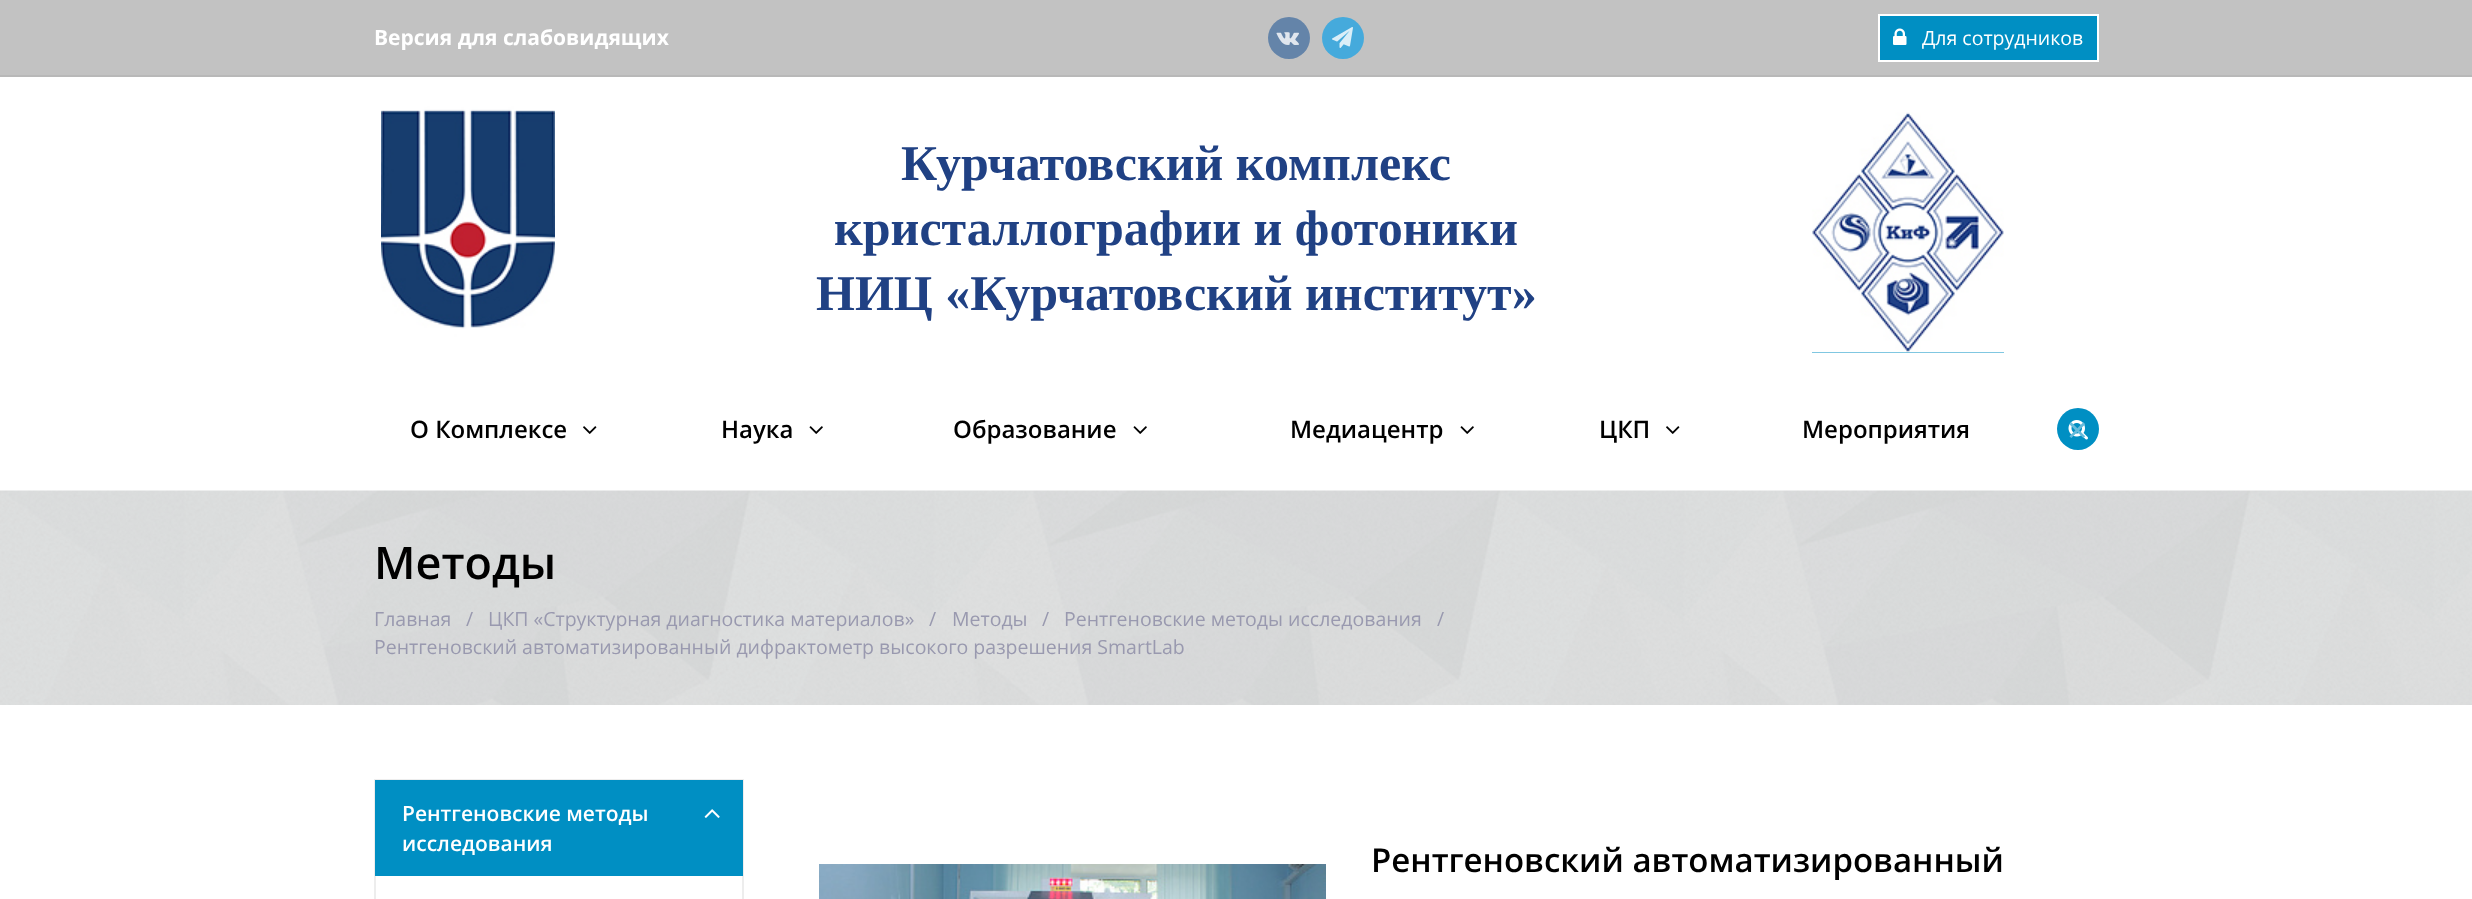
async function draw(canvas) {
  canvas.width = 2472;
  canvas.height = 899;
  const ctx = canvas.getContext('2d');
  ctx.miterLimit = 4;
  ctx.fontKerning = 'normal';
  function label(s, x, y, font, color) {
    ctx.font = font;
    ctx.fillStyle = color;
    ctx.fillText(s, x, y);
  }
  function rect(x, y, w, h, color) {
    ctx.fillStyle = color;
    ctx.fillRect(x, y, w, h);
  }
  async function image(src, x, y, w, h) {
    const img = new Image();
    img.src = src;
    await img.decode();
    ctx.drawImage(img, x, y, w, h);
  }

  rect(0, 0, 2472, 899, '#fff');
  rect(0, 0, 2472, 75, '#c2c2c2');
  rect(0, 75, 2472, 2, '#b8b8b8');
  label('Версия для слабовидящих', 374, 45, 'bold 21px Open Sans', '#fff');
  ctx.fillStyle = '#6484a9';
  ctx.beginPath();
  ctx.arc(1289, 38, 21, 0, 2 * Math.PI);
  ctx.fill();
  await image('assets/img1.png', 1276, 32, 23, 13);
  ctx.fillStyle = '#45aadc';
  ctx.beginPath();
  ctx.arc(1343, 38, 21, 0, 2 * Math.PI);
  ctx.fill();
  await image('assets/img2.png', 1332, 27, 21, 21);
  ctx.fillStyle = '#008fc3';
  ctx.beginPath();
  ctx.rect(1879, 15, 219, 46);
  ctx.fill();
  ctx.strokeStyle = '#fff';
  ctx.lineWidth = 2;
  ctx.stroke();
  await image('assets/img3.png', 1893, 28, 14, 17);
  label('Для сотрудников', 1922, 45, '19.5px Open Sans', '#fff');
  await image('assets/img4.png', 381, 99, 174, 240);
  label('Курчатовский комплекс', 901, 180, 'bold 50px Liberation Serif', '#204184');
  label('кристаллографии и фотоники', 834, 245, 'bold 50px Liberation Serif', '#204184');
  label('НИЦ «Курчатовский институт»', 816, 310, 'bold 50px Liberation Serif', '#204184');
  rect(1812, 352, 192, 1, '#008fc3');
  await image('assets/img5.png', 1812, 112, 192, 241);
  label('О Комплексе', 410, 438, '600 24px Open Sans', '#000');
  await image('assets/img6.png', 583, 426, 14, 8);
  label('Наука', 721, 438, '600 24px Open Sans', '#000');
  await image('assets/img7.png', 809, 426, 14, 8);
  label('Образование', 953, 438, '600 24px Open Sans', '#000');
  await image('assets/img7.png', 1133, 426, 14, 8);
  label('Медиацентр', 1290, 438, '600 24px Open Sans', '#000');
  await image('assets/img7.png', 1460, 426, 14, 8);
  label('ЦКП', 1599, 438, '600 24px Open Sans', '#000');
  await image('assets/img6.png', 1666, 426, 14, 8);
  label('Мероприятия', 1802, 438, '600 24px Open Sans', '#000');
  ctx.fillStyle = '#008fc3';
  ctx.beginPath();
  ctx.arc(2078, 429, 21, 0, 2 * Math.PI);
  ctx.fill();
  await image('assets/img8.png', 2068, 420, 20, 20);
  label('✕', 2066, 440, '27px DejaVu Sans', '#65bbdb');
  await image('assets/img9.png', 0, 490, 2472, 215);
  label('Методы', 374, 579, '600 45px Open Sans', '#000');
  label('Главная', 374, 626, '19.5px Open Sans', '#9999af');
  label('/', 466, 626, '19.5px Open Sans', '#9999af');
  label('ЦКП «Структурная диагностика материалов»', 488, 626, '19.5px Open Sans', '#9999af');
  label('/', 929, 626, '19.5px Open Sans', '#9999af');
  label('Методы', 952, 626, '19.5px Open Sans', '#9999af');
  label('/', 1042, 626, '19.5px Open Sans', '#9999af');
  label('Рентгеновские методы исследования', 1064, 626, '19.5px Open Sans', '#9999af');
  label('/', 1437, 626, '19.5px Open Sans', '#9999af');
  label('Рентгеновский автоматизированный дифрактометр высокого разрешения SmartLab', 374, 654, '19.5px Open Sans', '#9999af');
  ctx.strokeStyle = '#ededed';
  ctx.strokeRect(375, 780, 368, 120);
  rect(375, 780, 368, 96, '#008fc3');
  label('Рентгеновские методы', 402, 821, '600 21px Open Sans', '#fff');
  label('исследования', 402, 851, '600 21px Open Sans', '#fff');
  await image('assets/img10.png', 704, 809, 16, 9);
  await image('assets/img11.png', 819, 864, 507, 35);
  label('Рентгеновский автоматизированный', 1371, 872, '600 33px Open Sans', '#000');
}

draw(document.querySelector('canvas'));
